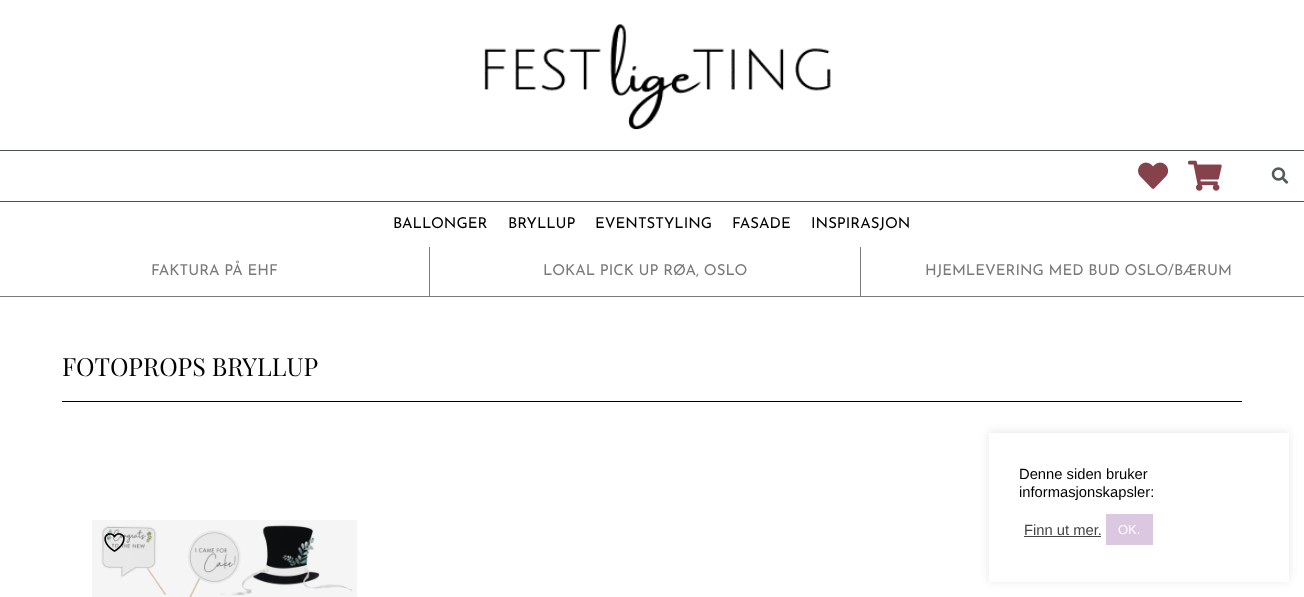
async function draw(canvas) {
  canvas.width = 1304;
  canvas.height = 597;
  const ctx = canvas.getContext('2d');
  ctx.miterLimit = 4;
  ctx.fontKerning = 'normal';
  function label(s, x, y, font, color) {
    ctx.font = font;
    ctx.fillStyle = color;
    ctx.fillText(s, x, y);
  }
  function rect(x, y, w, h, color) {
    ctx.fillStyle = color;
    ctx.fillRect(x, y, w, h);
  }
  async function image(src, x, y, w, h) {
    const img = new Image();
    img.src = src;
    await img.decode();
    ctx.drawImage(img, x, y, w, h);
  }

  rect(0, 0, 1304, 597, '#fff');
  await image('assets/img1.png', 484, 24, 347, 106);
  rect(0, 150, 1304, 1, '#4b4f58');
  rect(0, 201, 1304, 1, '#4b4f58');
  await image('assets/img2.png', 1138, 162, 31, 27);
  await image('assets/img3.png', 1188, 160, 34, 31);
  await image('assets/img4.png', 1271, 167, 18, 17);
  label('BALLONGER', 393, 228, '15px Josefin Sans', '#000');
  label('BRYLLUP', 508, 228, '15px Josefin Sans', '#000');
  label('EVENTSTYLING', 595, 228, '15px Josefin Sans', '#000');
  label('FASADE', 732, 228, '15px Josefin Sans', '#000');
  label('INSPIRASJON', 811, 228, '15px Josefin Sans', '#000');
  rect(0, 296, 1304, 1, '#7a7a7a');
  rect(429, 247, 1, 49, '#7a7a7a');
  label('FAKTURA PÅ EHF', 151, 275, '15px Josefin Sans', '#7a7a7a');
  rect(860, 247, 1, 49, '#7a7a7a');
  label('LOKAL PICK UP RØA, OSLO', 543, 275, '15px Josefin Sans', '#7a7a7a');
  label('HJEMLEVERING MED BUD OSLO/BÆRUM', 925, 275, '15px Josefin Sans', '#7a7a7a');
  label('FOTOPROPS BRYLLUP', 62, 376, '25px Playfair Display', '#000');
  rect(62, 401, 1180, 1, '#000');
  await image('assets/img5.png', 92, 520, 265, 77);
  await image('assets/img6.png', 104, 533, 21, 19);
  ctx.fillStyle = '#acabab4d';
  ctx.filter = 'blur(5px)';
  ctx.beginPath();
  ctx.rect(989, 432, 300, 149);
  ctx.fill();
  ctx.filter = 'none';
  rect(989, 433, 300, 149, '#fff');
  label('Denne siden bruker', 1019, 479, '14.75px Liberation Sans', '#000');
  label('informasjonskapsler:', 1019, 497, '14.75px Liberation Sans', '#000');
  label('Finn ut mer.', 1024, 535, '14.75px Liberation Sans', '#444');
  rect(1024, 536, 77, 1, '#444');
  rect(1106, 514, 47, 31, '#dbc7e0');
  label('OK.', 1118, 534, '13px Liberation Sans', '#fff');
}

draw(document.querySelector('canvas'));
